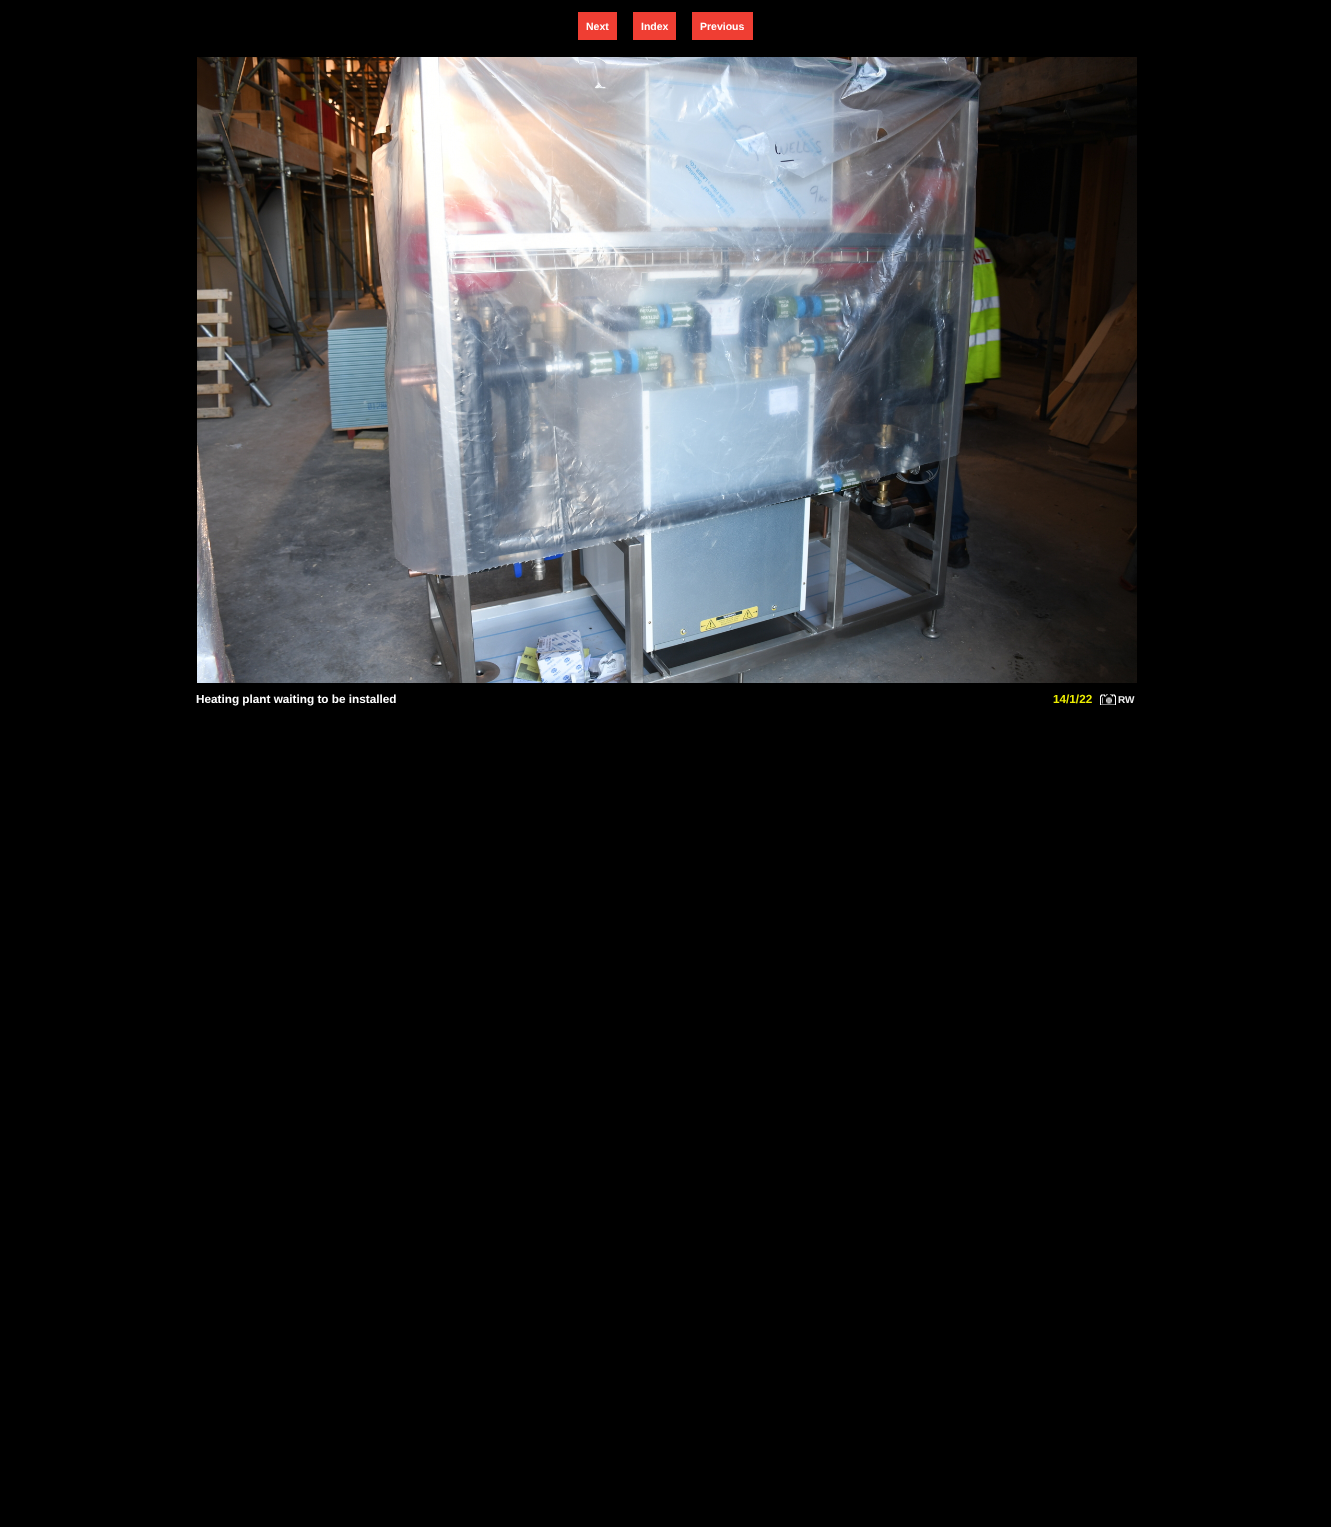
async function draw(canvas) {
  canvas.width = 1331;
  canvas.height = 1527;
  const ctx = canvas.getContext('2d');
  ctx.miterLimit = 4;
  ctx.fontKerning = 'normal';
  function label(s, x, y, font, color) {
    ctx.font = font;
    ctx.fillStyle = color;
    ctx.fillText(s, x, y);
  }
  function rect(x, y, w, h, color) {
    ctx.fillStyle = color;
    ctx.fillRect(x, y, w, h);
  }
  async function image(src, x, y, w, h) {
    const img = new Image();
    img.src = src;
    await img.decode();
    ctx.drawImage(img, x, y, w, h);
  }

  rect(0, 0, 1331, 1527, '#000');
  rect(578, 12, 39, 28, '#ef3e33');
  label('Next', 586, 30, 'bold 10.5px Liberation Sans', '#fff');
  rect(633, 12, 43, 28, '#ef3e33');
  label('Index', 641, 30, 'bold 10.5px Liberation Sans', '#fff');
  rect(692, 12, 61, 28, '#ef3e33');
  label('Previous', 700, 30, 'bold 10.5px Liberation Sans', '#fff');
  await image('assets/img1.png', 197, 57, 940, 626);
  label('Heating plant waiting to be installed', 196, 703, 'bold 11.75px Liberation Sans', '#fff');
  label('14/1/22', 1053, 703, 'bold 11.75px Liberation Sans', '#ee0');
  await image('assets/img2.png', 1100, 694, 16, 11);
  label('RW', 1118, 703, 'bold 10px Liberation Sans', '#eee');
}

draw(document.querySelector('canvas'));
